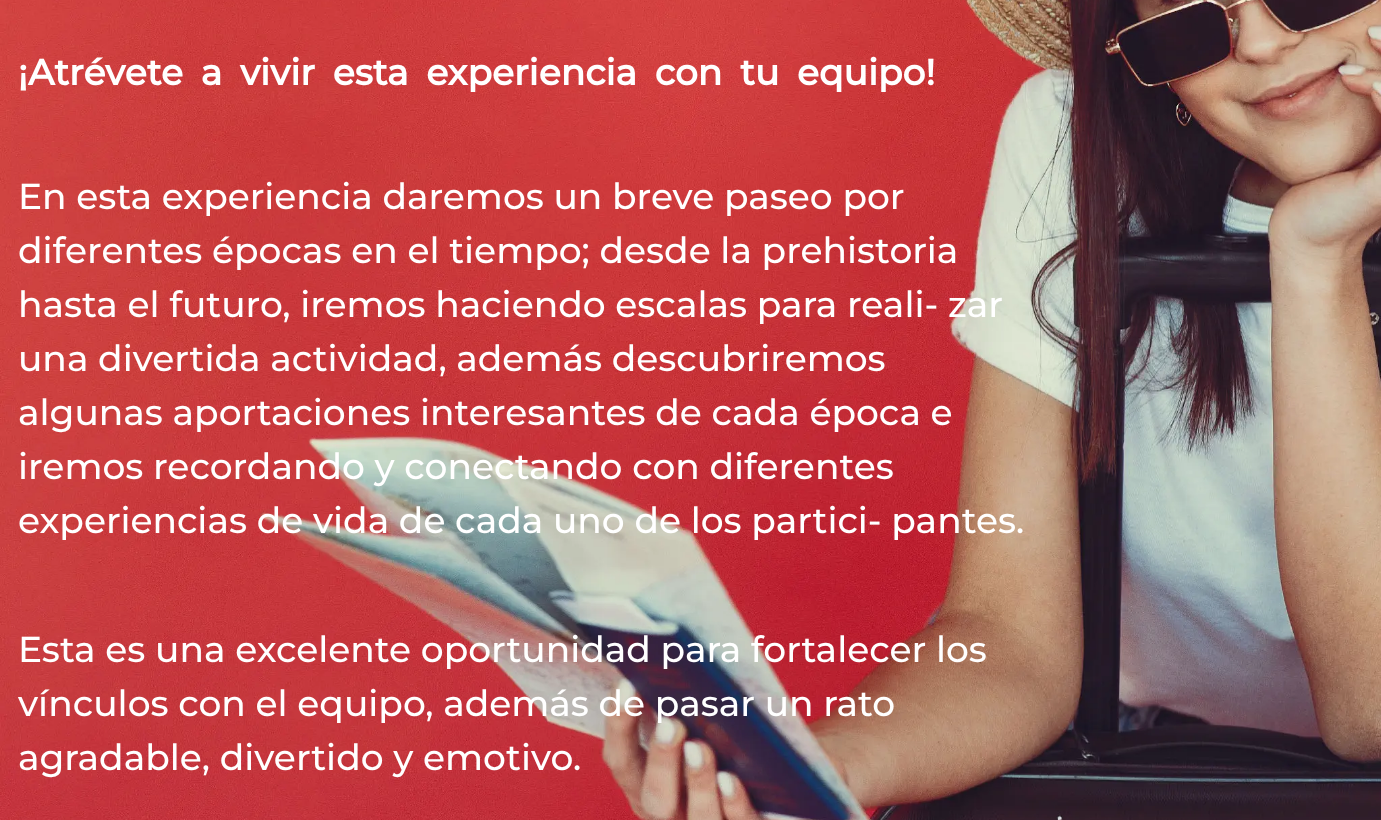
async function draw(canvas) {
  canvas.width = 1381;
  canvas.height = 820;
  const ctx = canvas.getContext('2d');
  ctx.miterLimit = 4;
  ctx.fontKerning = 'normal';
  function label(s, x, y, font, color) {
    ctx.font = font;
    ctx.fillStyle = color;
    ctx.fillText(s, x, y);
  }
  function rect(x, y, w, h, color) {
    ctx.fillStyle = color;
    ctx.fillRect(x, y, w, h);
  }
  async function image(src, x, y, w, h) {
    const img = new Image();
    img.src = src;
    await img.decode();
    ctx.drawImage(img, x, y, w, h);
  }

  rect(0, 0, 1381, 820, '#fff');
  await image('assets/img1.png', 0, 0, 1381, 820);
  ctx.wordSpacing = '8px';
  label('¡Atrévete a vivir esta experiencia con tu equipo!', 18, 85, 'bold 36px Montserrat', '#fff');
  ctx.wordSpacing = '0px';
  label('En esta experiencia daremos un breve paseo por', 18, 209, '500 36px Montserrat', '#fff');
  label('diferentes épocas en el tiempo; desde la prehistoria', 18, 263, '500 36px Montserrat', '#fff');
  label('hasta el futuro, iremos haciendo escalas para reali- zar', 18, 317, '500 36px Montserrat', '#fff');
  label('una divertida actividad, además descubriremos', 18, 371, '500 36px Montserrat', '#fff');
  label('algunas aportaciones interesantes de cada época e', 18, 425, '500 36px Montserrat', '#fff');
  label('iremos recordando y conectando con diferentes', 18, 479, '500 36px Montserrat', '#fff');
  label('experiencias de vida de cada uno de los partici- pantes.', 18, 533, '500 36px Montserrat', '#fff');
  label('Esta es una excelente oportunidad para fortalecer los', 18, 662, '500 36px Montserrat', '#fff');
  label('vínculos con el equipo, además de pasar un rato', 18, 716, '500 36px Montserrat', '#fff');
  label('agradable, divertido y emotivo.', 18, 770, '500 36px Montserrat', '#fff');
}

draw(document.querySelector('canvas'));
